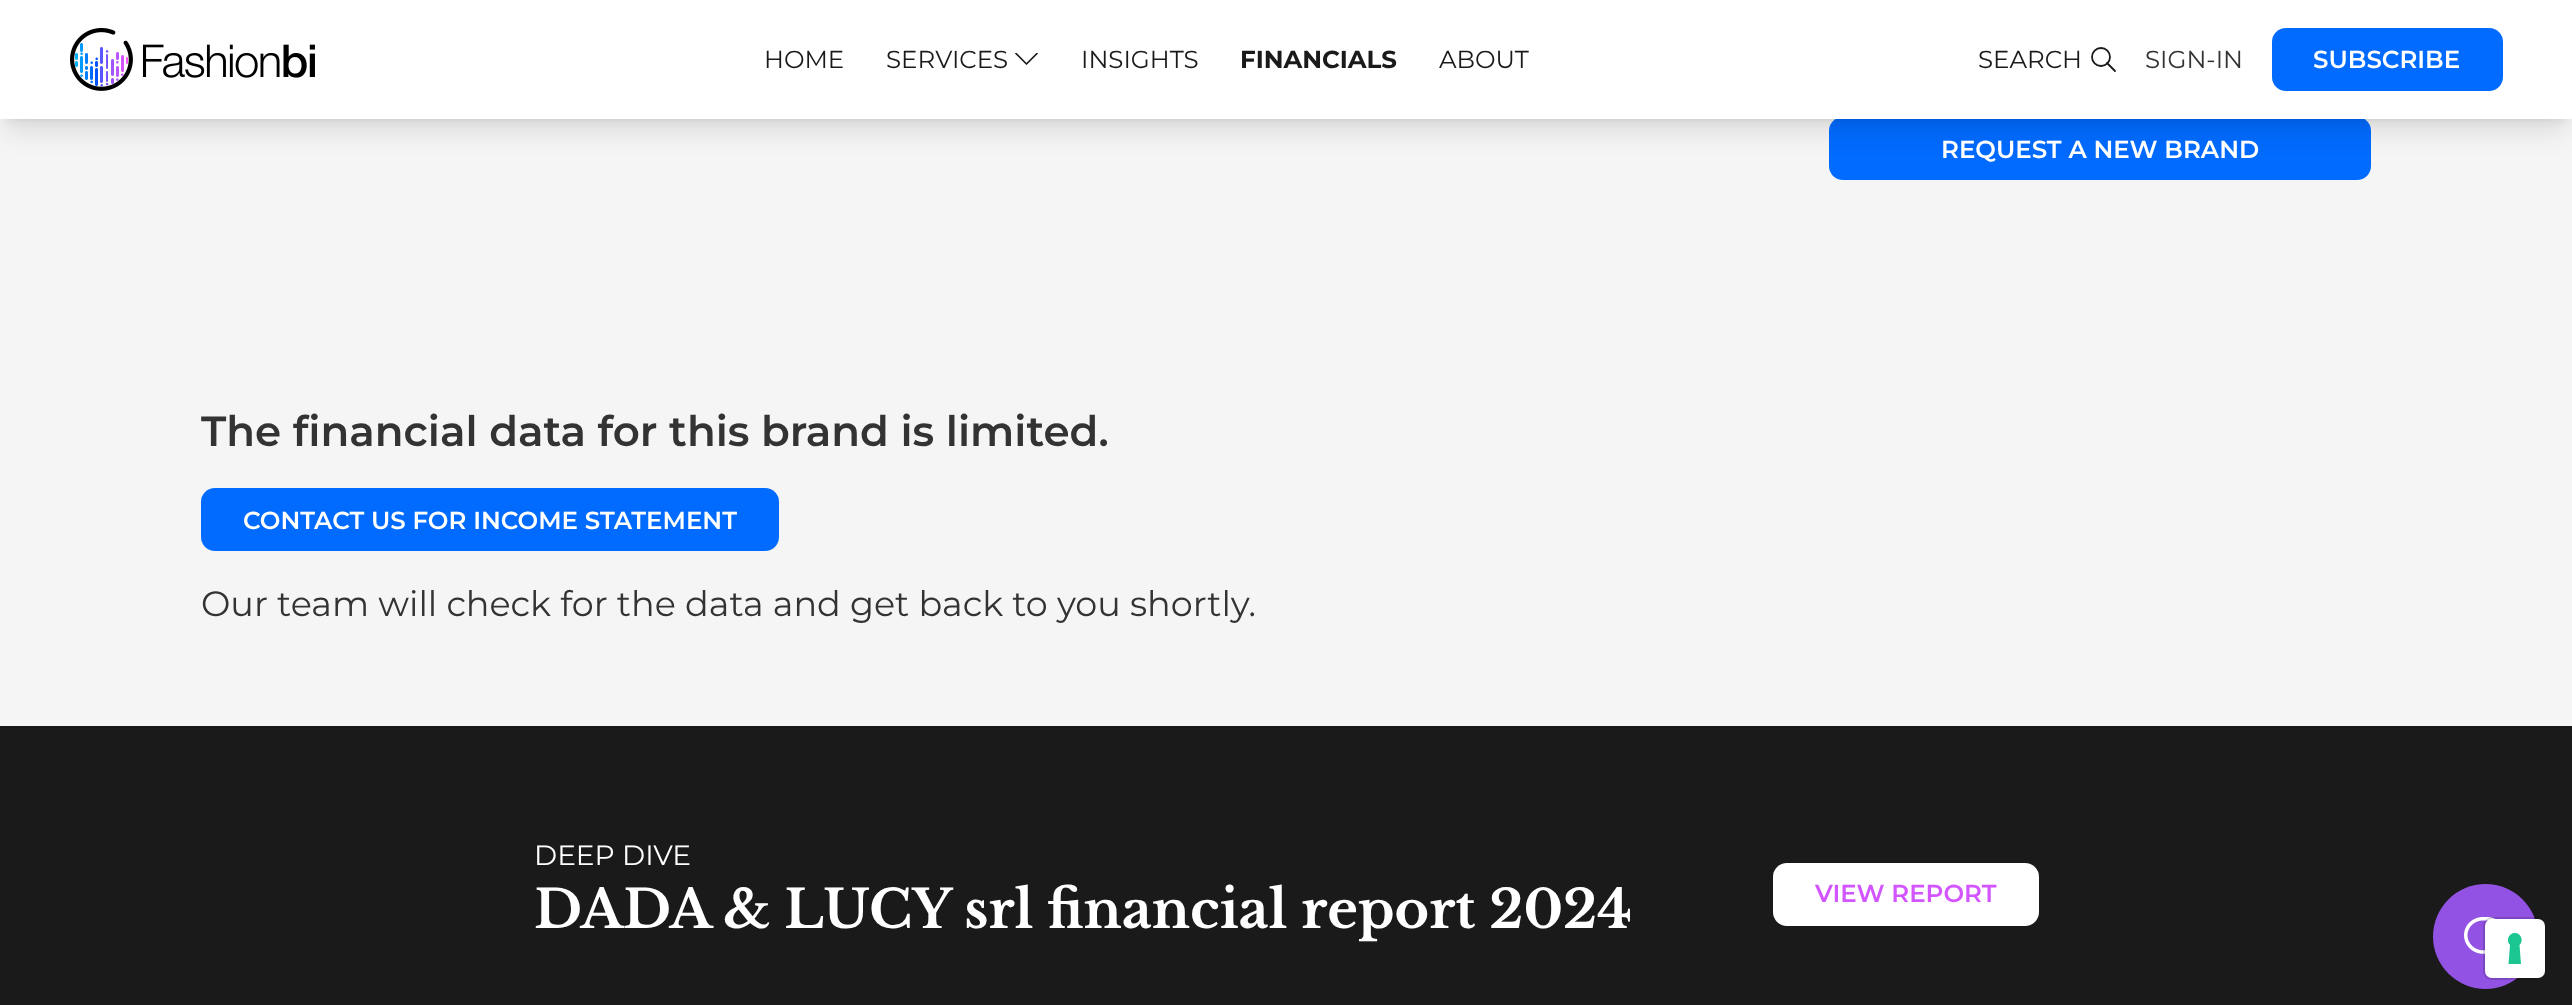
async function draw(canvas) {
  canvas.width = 2572;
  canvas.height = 1005;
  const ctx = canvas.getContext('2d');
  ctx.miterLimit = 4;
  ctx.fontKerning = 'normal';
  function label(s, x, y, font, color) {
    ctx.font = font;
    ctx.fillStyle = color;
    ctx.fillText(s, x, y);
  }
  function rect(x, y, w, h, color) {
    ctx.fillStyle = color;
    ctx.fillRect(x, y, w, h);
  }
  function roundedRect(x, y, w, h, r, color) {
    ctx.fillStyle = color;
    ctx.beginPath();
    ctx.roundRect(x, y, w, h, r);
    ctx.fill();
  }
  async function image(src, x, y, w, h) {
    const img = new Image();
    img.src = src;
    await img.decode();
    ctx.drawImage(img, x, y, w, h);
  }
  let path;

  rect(0, 0, 2572, 1005, '#f5f5f5');
  roundedRect(1829, 117, 542, 63, 14, '#016bff');
  ctx.fillStyle = '#0000001a';
  ctx.filter = 'blur(5px)';
  ctx.beginPath();
  ctx.rect(7, 14, 2559, 105);
  ctx.fill();
  ctx.filter = 'none';
  ctx.filter = 'blur(13px)';
  ctx.beginPath();
  ctx.rect(5, 23, 2562, 108);
  ctx.fill();
  ctx.filter = 'none';
  rect(0, 0, 2572, 119, '#fff');
  await image('assets/img1.png', 70, 28, 245, 63);
  label('HOME', 764, 68, '24.5px Montserrat', '#1a1a1a');
  label('SERVICES', 886, 68, '24.5px Montserrat', '#1a1a1a');
  ctx.save();
  ctx.beginPath();
  ctx.rect(1015, 53, 25, 14);
  ctx.clip();
  path = new Path2D('M1016 53.5L1026.5 64L1037 53.5');
  ctx.strokeStyle = '#1a1a1a';
  ctx.lineWidth = 1.7;
  ctx.lineCap = 'round';
  ctx.lineJoin = 'round';
  ctx.stroke(path);
  ctx.restore();
  label('INSIGHTS', 1081, 68, '24.5px Montserrat', '#1a1a1a');
  label('FINANCIALS', 1240, 68, 'bold 24.5px Montserrat', '#1a1a1a');
  label('ABOUT', 1439, 68, '24.5px Montserrat', '#1a1a1a');
  label('SEARCH', 1978, 68, '24.5px Montserrat', '#1a1a1a');
  ctx.beginPath();
  ctx.arc(2101, 57, 9, 0, 2 * Math.PI);
  ctx.strokeStyle = '#1a1a1a';
  ctx.lineWidth = 1.8;
  ctx.stroke();
  path = new Path2D('M2115 71L2107 63');
  ctx.lineCap = 'round';
  ctx.lineJoin = 'round';
  ctx.stroke(path);
  label('SIGN-IN', 2145, 68, '24.5px Montserrat', '#333');
  roundedRect(2272, 28, 231, 63, 14, '#016bff');
  label('SUBSCRIBE', 2313, 68, '600 24.5px Montserrat', '#fff');
  label('REQUEST A NEW BRAND', 1941, 158, '600 24.5px Montserrat', '#fff');
  label('The financial data for this brand is limited.', 201, 446, '600 42px Montserrat', '#333');
  roundedRect(201, 488, 578, 63, 14, '#016bff');
  label('CONTACT US FOR INCOME STATEMENT', 243, 529, '600 24.5px Montserrat', '#fff');
  label('Our team will check for the data and get back to you shortly.', 201, 616, '35px Montserrat', '#333');
  rect(0, 726, 2572, 279, '#1a1a1a');
  label('DEEP DIVE', 534, 865, '28px Montserrat', '#fff');
  label('DADA & LUCY srl financial report 2024', 534, 928, 'bold 52.5px Libre Baskerville', '#fff');
  roundedRect(1773, 863, 266, 63, 14, '#fff');
  label('VIEW REPORT', 1815, 902, '600 24.5px Montserrat', '#d355ff');
  ctx.fillStyle = '#9253e5';
  ctx.beginPath();
  ctx.arc(2485.5, 936.5, 52.5, 0, 2 * Math.PI);
  ctx.fill();
  await image('assets/img2.png', 2464, 917, 32, 37);
  ctx.beginPath();
  ctx.roundRect(2484, 918, 61, 61, 8);
  ctx.strokeStyle = '#00000026';
  ctx.lineWidth = 2;
  ctx.lineJoin = 'miter';
  ctx.stroke();
  roundedRect(2485, 919, 60, 59, 7, '#fff');
  ctx.fillStyle = '#1cc691';
  path = new Path2D('M2515 933C2521 933 2524 941 2519.5 945L2521 964H2508.5L2510 945C2505.5 941 2508.5 933 2515 933Z');
  ctx.fill(path, 'evenodd');
}

draw(document.querySelector('canvas'));
